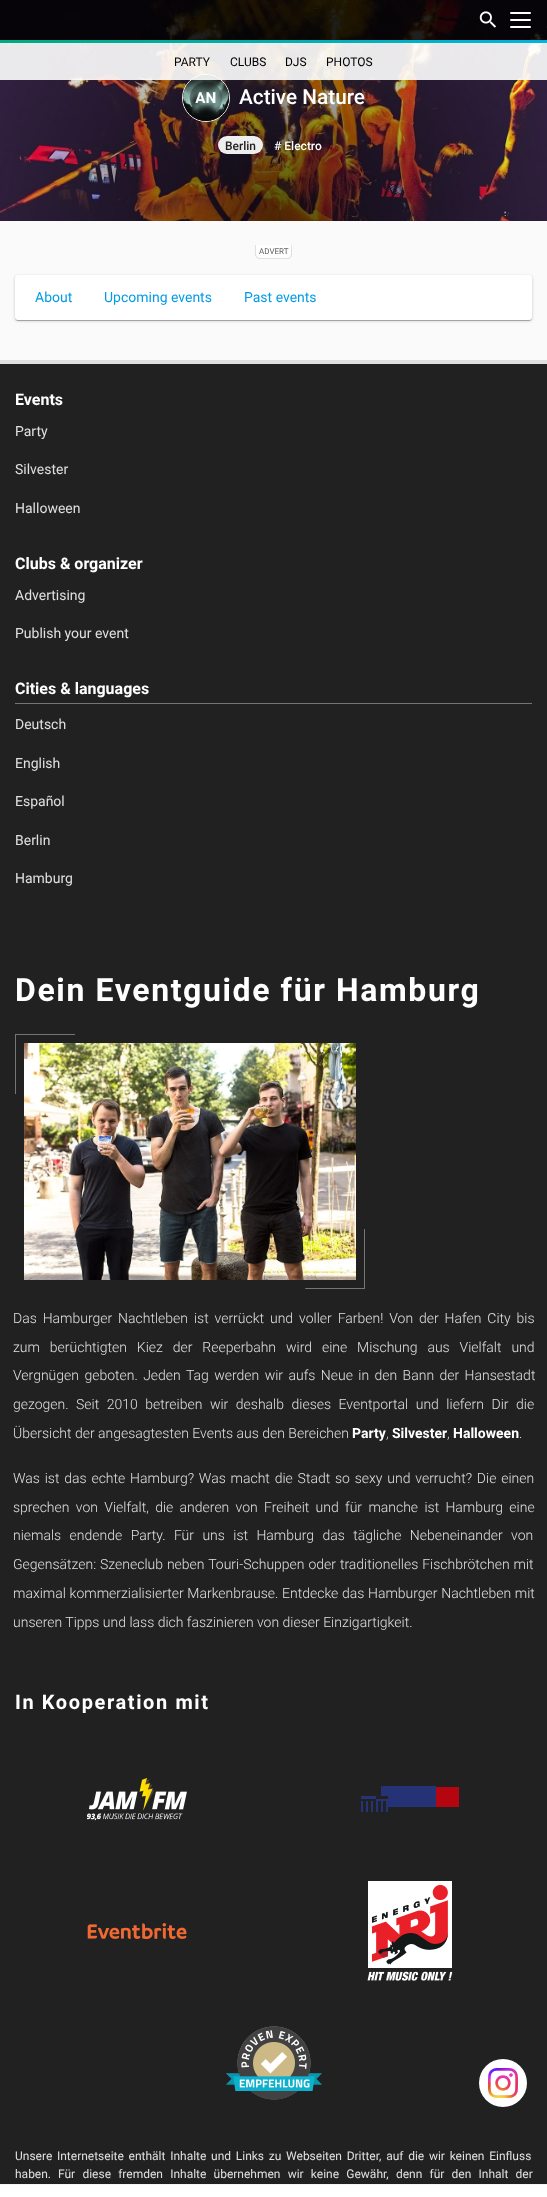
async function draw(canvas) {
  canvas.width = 547;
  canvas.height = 2197;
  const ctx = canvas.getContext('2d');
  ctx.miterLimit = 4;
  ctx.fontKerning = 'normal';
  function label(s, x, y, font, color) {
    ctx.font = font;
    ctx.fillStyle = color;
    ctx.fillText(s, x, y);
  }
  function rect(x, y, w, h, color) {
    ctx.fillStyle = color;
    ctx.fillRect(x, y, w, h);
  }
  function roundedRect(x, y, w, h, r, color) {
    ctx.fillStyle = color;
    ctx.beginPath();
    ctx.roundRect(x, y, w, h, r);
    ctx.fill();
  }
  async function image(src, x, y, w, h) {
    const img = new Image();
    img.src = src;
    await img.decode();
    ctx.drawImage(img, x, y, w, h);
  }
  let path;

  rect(0, 0, 547, 2197, '#fafafa');
  await image('assets/img3.png', 0, 0, 547, 221);
  rect(0, 0, 547, 40, '#000000d9');
  await image('assets/img1.png', 479, 11, 17, 17);
  roundedRect(510, 12, 21, 2, 1, '#fff');
  roundedRect(510, 19, 21, 2, 1, '#fff');
  roundedRect(510, 26, 21, 2, 1, '#fff');
  ctx.fillStyle = '#000';
  ctx.beginPath();
  ctx.arc(206, 98, 23.5, 0, 2 * Math.PI);
  ctx.fill();
  ctx.strokeStyle = '#eee';
  ctx.stroke();
  await image('assets/img4.png', 183, 75, 46, 46);
  rect(0, 43, 547, 37, '#ffffffe6');
  await image('assets/img2.png', 0, 40, 547, 3);
  label('PARTY', 174, 66, '12px Roboto', '#000');
  label('CLUBS', 230, 66, '12px Roboto', '#000');
  label('DJS', 285, 66, '12px Roboto', '#000');
  label('PHOTOS', 326, 66, '12px Roboto', '#000');
  label('Active Nature', 239, 104, '500 20.75px Roboto', '#fff');
  roundedRect(218, 136, 45, 18, 9, '#eee');
  label('Berlin', 225, 150, '500 12px Roboto', '#212121');
  label('# Electro', 274, 150, '500 12px Roboto', '#fff');
  ctx.fillStyle = '#fefefe';
  ctx.beginPath();
  ctx.roundRect(256, 245, 35, 13, [0, 0, 4, 4]);
  ctx.fill();
  ctx.fillStyle = '#e0e0e0';
  path = new Path2D('M255 245H292V254C292 257 290 259 287.5 259H260C257.5 259 255 257 255 254ZM256 245H291V254C291 256.5 289.5 258 287.5 258H260C258 258 256 256.5 256 254Z');
  ctx.fill(path, 'evenodd');
  label('ADVERT', 259, 254, '8px Roboto', '#616161');
  ctx.fillStyle = '#0000001f';
  ctx.filter = 'blur(0.5px)';
  ctx.beginPath();
  ctx.roundRect(16, 278, 515, 43, 2);
  ctx.fill();
  ctx.filter = 'none';
  ctx.fillStyle = '#00000024';
  ctx.filter = 'blur(0.5px)';
  ctx.beginPath();
  ctx.roundRect(15, 276, 517, 45, 3);
  ctx.fill();
  ctx.filter = 'none';
  ctx.fillStyle = '#00000033';
  ctx.filter = 'blur(1.5px)';
  ctx.beginPath();
  ctx.roundRect(15, 276, 517, 45, 3);
  ctx.fill();
  ctx.filter = 'none';
  roundedRect(15, 275, 517, 45, 3, '#fff');
  label('About', 35, 302, '14px Roboto', '#039be5');
  label('Upcoming events', 104, 302, '14px Roboto', '#039be5');
  label('Past events', 244, 302, '14px Roboto', '#039be5');
  rect(0, 364, 547, 1820, '#212121');
  rect(0, 360, 547, 4, '#e0e0e0');
  label('Events', 15, 405, 'bold 16px Roboto', '#fff');
  label('Party', 15, 436, '14px Roboto', '#e0e0e0');
  label('Silvester', 15, 474, '14px Roboto', '#e0e0e0');
  label('Halloween', 15, 513, '14px Roboto', '#e0e0e0');
  label('Clubs & organizer', 15, 569, 'bold 16px Roboto', '#fff');
  label('Advertising', 15, 600, '14px Roboto', '#e0e0e0');
  label('Publish your event', 15, 638, '14px Roboto', '#e0e0e0');
  label('Cities & languages', 15, 694, 'bold 16px Roboto', '#fff');
  rect(15, 703, 517, 1, '#757575');
  label('Deutsch', 15, 729, '14px Roboto', '#e0e0e0');
  label('English', 15, 768, '14px Roboto', '#e0e0e0');
  label('Español', 15, 806, '14px Roboto', '#e0e0e0');
  label('Berlin', 15, 845, '14px Roboto', '#e0e0e0');
  label('Hamburg', 15, 883, '14px Roboto', '#e0e0e0');
  ctx.letterSpacing = '1.6px';
  label('Dein Eventguide für Hamburg', 15, 1001, 'bold 32px Roboto', '#fff');
  await image('assets/img5.png', 15, 1034, 350, 255);
  ctx.letterSpacing = '0px';
  ctx.wordSpacing = '2.5px';
  label('Das Hamburger Nachtleben ist verrückt und voller Farben! Von der Hafen City bis', 13, 1323, '300 14px Roboto', '#e0e0e0');
  ctx.wordSpacing = '6.5px';
  label('zum berüchtigten Kiez der Reeperbahn wird eine Mischung aus Vielfalt und', 13, 1352, '300 14px Roboto', '#e0e0e0');
  ctx.wordSpacing = '2px';
  label('Vergnügen geboten. Jeden Tag werden wir aufs Neue in den Bann der Hansestadt', 13, 1380, '300 14px Roboto', '#e0e0e0');
  ctx.wordSpacing = '4.1px';
  label('gezogen. Seit 2010 betreiben wir deshalb dieses Eventportal und liefern Dir die', 13, 1409, '300 14px Roboto', '#e0e0e0');
  ctx.wordSpacing = '0px';
  label('Übersicht der angesagtesten Events aus den Bereichen', 13, 1438, '300 14px Roboto', '#e0e0e0');
  label('Party', 352, 1438, 'bold 14px Roboto', '#fff');
  label(',', 386, 1438, '300 14px Roboto', '#e0e0e0');
  label('Silvester', 392, 1438, 'bold 14px Roboto', '#fff');
  label(',', 447, 1438, '300 14px Roboto', '#e0e0e0');
  label('Halloween', 453, 1438, 'bold 14px Roboto', '#fff');
  label('.', 519, 1438, '300 14px Roboto', '#e0e0e0');
  ctx.wordSpacing = '1.4px';
  label('Was ist das echte Hamburg? Was macht die Stadt so sexy und verrucht? Die einen', 13, 1483, '300 14px Roboto', '#e0e0e0');
  ctx.wordSpacing = '2.9px';
  label('sprechen von Vielfalt, die anderen von Freiheit und für manche ist Hamburg eine', 13, 1512, '300 14px Roboto', '#e0e0e0');
  ctx.wordSpacing = '5px';
  label('niemals endende Party. Für uns ist Hamburg das tägliche Nebeneinander von', 13, 1540, '300 14px Roboto', '#e0e0e0');
  ctx.wordSpacing = '0.5px';
  label('Gegensätzen: Szeneclub neben Touri-Schuppen oder traditionelles Fischbrötchen mit', 13, 1569, '300 14px Roboto', '#e0e0e0');
  ctx.wordSpacing = '0.25px';
  label('maximal kommerzialisierter Markenbrause. Entdecke das Hamburger Nachtleben mit', 13, 1598, '300 14px Roboto', '#e0e0e0');
  ctx.wordSpacing = '0px';
  label('unseren Tipps und lass dich faszinieren von dieser Einzigartigkeit.', 13, 1627, '300 14px Roboto', '#e0e0e0');
  ctx.letterSpacing = '1.6px';
  label('In Kooperation mit', 15, 1709, 'bold 20px Roboto', '#fff');
  await image('assets/img6.png', 87, 1778, 100, 43);
  rect(361, 1796, 15, 3, '#253377');
  ctx.fillStyle = '#253276';
  path = new Path2D('M376 1812H378V1801H381V1812H383V1801H386V1812H388V1807H436V1786H381V1796H388V1799H376Z');
  ctx.fill(path);
  rect(436, 1787, 23, 20, '#b5050e');
  rect(361, 1801, 2, 11, '#253377');
  rect(366, 1801, 2, 11, '#253377');
  rect(371, 1801, 2, 11, '#253377');
  await image('assets/img7.png', 87, 1923, 100, 16);
  await image('assets/img8.png', 367, 1881, 86, 100);
  await image('assets/img9.png', 226, 2026, 96, 74);
  ctx.letterSpacing = '0px';
  ctx.wordSpacing = '1.75px';
  label('Unsere Internetseite enthält Inhalte und Links zu Webseiten Dritter, auf die wir keinen Einfluss', 15, 2160, '12px Roboto', '#e0e0e0');
  ctx.wordSpacing = '0px';
  label('haben.', 15, 2178, '12px Roboto', '#e0e0e0');
  ctx.wordSpacing = '4.25px';
  label('Für diese fremden Inhalte übernehmen wir keine Gewähr, denn für den Inhalt der', 58, 2178, '12px Roboto', '#e0e0e0');
  rect(0, 2185, 547, 12, '#fff');
  rect(0, 2184, 547, 1, '#f5f5f5');
  ctx.fillStyle = '#fff';
  ctx.beginPath();
  ctx.arc(503, 2083, 24, 0, 2 * Math.PI);
  ctx.fill();
  await image('assets/img10.png', 488, 2068, 30, 30);
}

draw(document.querySelector('canvas'));
